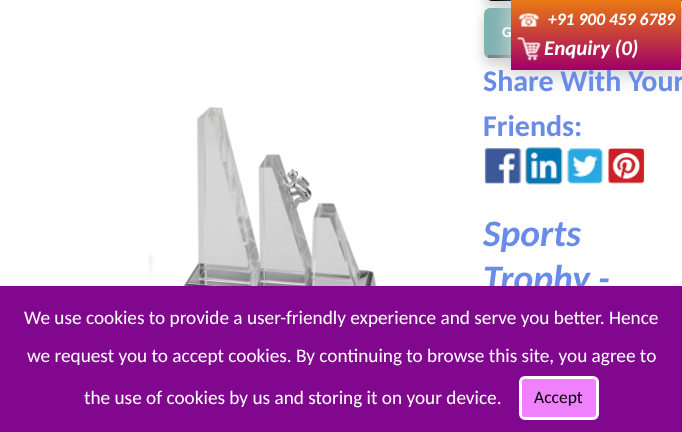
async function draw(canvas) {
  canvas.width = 682;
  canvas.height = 432;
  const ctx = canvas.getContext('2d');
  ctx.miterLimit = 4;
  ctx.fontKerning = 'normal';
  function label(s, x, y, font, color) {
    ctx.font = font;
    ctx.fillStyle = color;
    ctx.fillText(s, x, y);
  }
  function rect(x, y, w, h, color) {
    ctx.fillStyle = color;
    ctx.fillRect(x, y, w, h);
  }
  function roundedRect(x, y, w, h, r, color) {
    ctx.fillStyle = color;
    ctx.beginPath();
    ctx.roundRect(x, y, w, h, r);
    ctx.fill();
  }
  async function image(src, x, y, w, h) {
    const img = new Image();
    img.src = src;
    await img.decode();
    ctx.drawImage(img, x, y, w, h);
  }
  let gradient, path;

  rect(0, 0, 682, 432, '#fff');
  ctx.save();
  path = new Path2D('M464 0H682V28H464ZM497-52H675C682-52 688-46 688-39V-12C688-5 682 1 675 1H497C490 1 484-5 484-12V-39C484-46 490-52 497-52Z');
  ctx.clip(path, 'evenodd');
  ctx.fillStyle = '#d3d3d3';
  ctx.filter = 'blur(6px)';
  ctx.beginPath();
  ctx.roundRect(483, -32, 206, 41, 14);
  ctx.fill();
  ctx.filter = 'none';
  ctx.restore();
  ctx.beginPath();
  ctx.roundRect(485.5, -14.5, 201, 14, 11.5);
  ctx.strokeStyle = '#000';
  ctx.lineWidth = 3;
  ctx.stroke();
  ctx.fillStyle = '#d3d3d3';
  ctx.filter = 'blur(6px)';
  ctx.beginPath();
  ctx.roundRect(483, 13, 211, 52, 8);
  ctx.fill();
  ctx.filter = 'none';
  roundedRect(484, 8, 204, 50, 6, '#80b2b2');
  rect(488, 55, 194, 3, '#808080');
  ctx.fillStyle = '#d3d3d3';
  ctx.filter = 'blur(9.5px)';
  ctx.beginPath();
  ctx.rect(509, 1, 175, 75);
  ctx.fill();
  ctx.filter = 'none';
  ctx.letterSpacing = '1px';
  label('G', 502, 37, 'bold 15px Carlito', '#fff');
  ctx.letterSpacing = '0px';
  label('Share With Your', 483, 91, 'bold 30px Carlito', '#6a8ce9');
  gradient = ctx.createLinearGradient(596, 0, 596, 70);
  gradient.addColorStop(0, '#ea7913');
  gradient.addColorStop(1, '#9f0066');
  ctx.fillStyle = gradient;
  ctx.fillRect(511, 0, 170, 70);
  await image('assets/img1.png', 518, 13, 22, 14);
  label('+91 900 459 6789', 548, 25, 'italic bold 17.5px Carlito', '#fff');
  await image('assets/img2.png', 517, 37, 24, 24);
  label('Enquiry (0)', 544, 55, 'italic bold 21px Carlito', '#fff');
  await image('assets/img3.png', 148, 106, 233, 180);
  label('Friends:', 483, 136, 'bold 30px Carlito', '#6a8ce9');
  await image('assets/img4.png', 484, 148, 38, 36);
  await image('assets/img5.png', 525, 147, 38, 38);
  await image('assets/img6.png', 567, 148, 36, 36);
  await image('assets/img7.png', 608, 148, 37, 36);
  label('Sports', 483, 246, 'italic bold 37.5px Carlito', '#6a8ce9');
  label('Trophy -', 483, 291, 'italic bold 37.5px Carlito', '#6a8ce9');
  rect(0, 286, 682, 146, '#80078e');
  label('We use cookies to provide a user-friendly experience and serve you better. Hence', 24, 324, '19.25px Carlito', '#fff');
  label('we request you to accept cookies. By continuing to browse this site, you agree to', 27, 362, '19.25px Carlito', '#fff');
  label('the use of cookies by us and storing it on your device.', 84, 404, '19.25px Carlito', '#fff');
  ctx.fillStyle = '#f081fd';
  ctx.beginPath();
  ctx.roundRect(520.5, 377.5, 77, 41, 4.5);
  ctx.fill();
  ctx.strokeStyle = '#fff';
  ctx.stroke();
  label('Accept', 534, 403, '17.5px Carlito', '#000');
}

draw(document.querySelector('canvas'));
